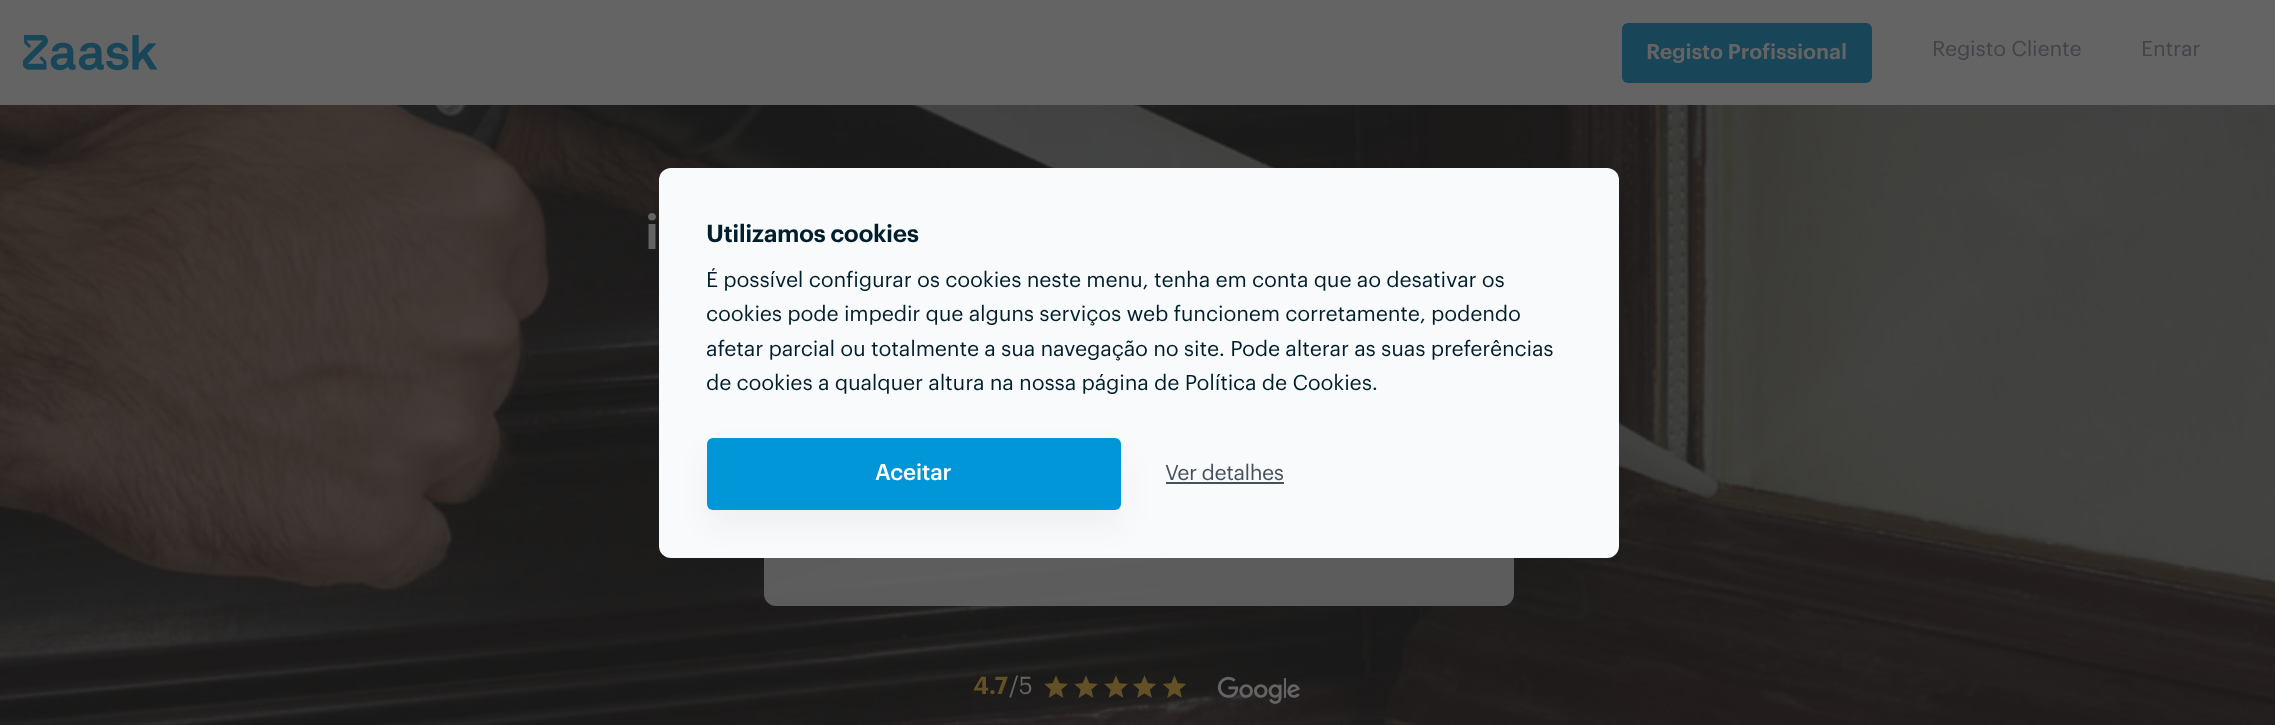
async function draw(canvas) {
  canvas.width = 2275;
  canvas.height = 725;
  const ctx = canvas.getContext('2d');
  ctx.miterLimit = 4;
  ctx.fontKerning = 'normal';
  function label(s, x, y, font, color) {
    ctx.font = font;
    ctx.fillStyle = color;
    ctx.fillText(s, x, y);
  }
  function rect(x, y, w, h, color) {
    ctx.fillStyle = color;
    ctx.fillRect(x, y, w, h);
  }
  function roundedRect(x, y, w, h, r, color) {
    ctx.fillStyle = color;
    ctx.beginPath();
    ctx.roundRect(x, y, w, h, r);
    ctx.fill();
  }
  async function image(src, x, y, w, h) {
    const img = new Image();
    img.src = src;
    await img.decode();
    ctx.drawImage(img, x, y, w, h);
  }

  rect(0, 0, 2275, 725, '#646464');
  await image('assets/img1.png', 23, 35, 135, 36);
  roundedRect(1622, 23, 250, 60, 6, '#184558');
  ctx.letterSpacing = '-0.2px';
  label('Registo Profissional', 1646, 59, '600 21px Graphik', '#646464');
  label('Registo Cliente', 1932, 56, '21px Graphik', '#40454c');
  label('Entrar', 2141, 56, '21px Graphik', '#40454c');
  await image('assets/img2.png', 0, 105, 2275, 620);
  ctx.letterSpacing = '0px';
  label('i', 645, 249, '600 48px Graphik', '#646464');
  roundedRect(764, 327, 750, 279, 12, '#646464e6');
  label('4.7', 973, 694, '600 24px Graphik', '#645027');
  label('/5', 1009, 694, '24px Graphik', '#646464');
  await image('assets/img3.png', 1044, 675, 24, 23);
  await image('assets/img4.png', 1074, 675, 24, 23);
  await image('assets/img5.png', 1104, 675, 24, 23);
  await image('assets/img6.png', 1133, 675, 24, 23);
  await image('assets/img7.png', 1163, 675, 24, 23);
  await image('assets/img8.png', 1217, 676, 83, 28);
  roundedRect(659, 168, 960, 390, 12, '#f8fafb');
  ctx.letterSpacing = '-0.5px';
  label('Utilizamos cookies', 706, 242, '600 24px Graphik', '#001e2b');
  ctx.letterSpacing = '-0.2px';
  label('É possível configurar os cookies neste menu, tenha em conta que ao desativar os', 706, 287, '21px Graphik', '#001e2b');
  label('cookies pode impedir que alguns serviços web funcionem corretamente, podendo', 706, 321, '21px Graphik', '#001e2b');
  label('afetar parcial ou totalmente a sua navegação no site. Pode alterar as suas preferências', 706, 356, '21px Graphik', '#001e2b');
  label('de cookies a qualquer altura na nossa página de Política de Cookies.', 706, 390, '21px Graphik', '#001e2b');
  ctx.fillStyle = '#1f20410d';
  ctx.filter = 'blur(15px)';
  ctx.beginPath();
  ctx.roundRect(707, 453, 414, 72, 6);
  ctx.fill();
  ctx.filter = 'none';
  roundedRect(707, 438, 414, 72, 6, '#0096d7');
  ctx.letterSpacing = '-0.25px';
  label('Aceitar', 875, 480, '500 22.5px Graphik', '#fff');
  ctx.letterSpacing = '-0.5px';
  label('Ver detalhes', 1165, 480, '21px Graphik', '#47515d');
  rect(1166, 482, 118, 2, '#47515d');
}

draw(document.querySelector('canvas'));
